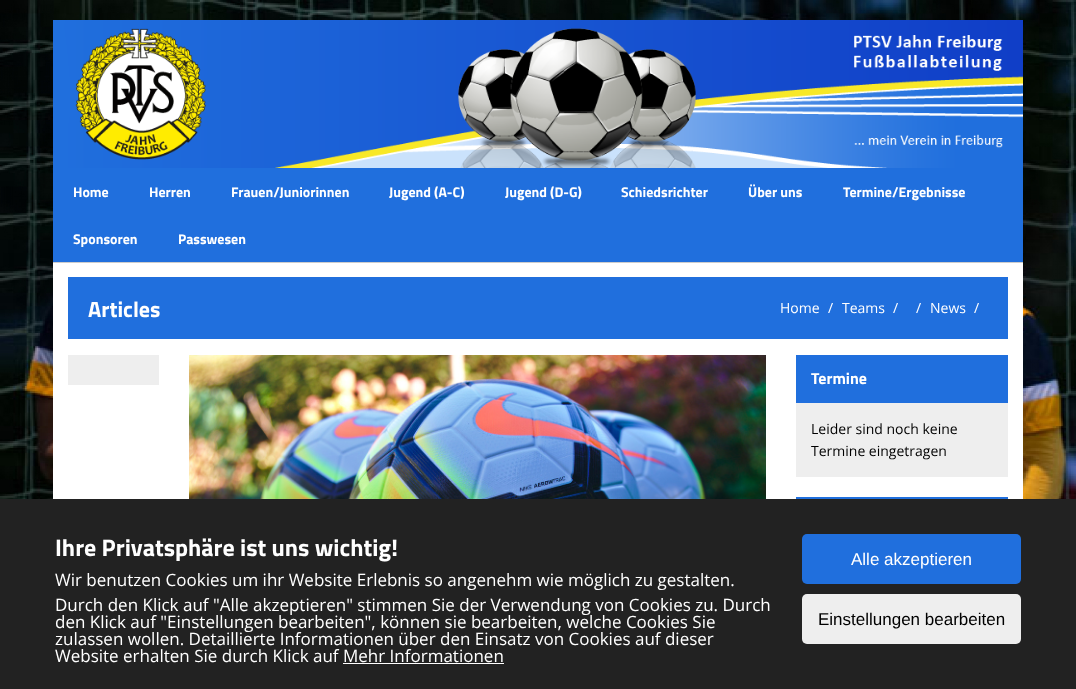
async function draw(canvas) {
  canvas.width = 1076;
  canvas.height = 689;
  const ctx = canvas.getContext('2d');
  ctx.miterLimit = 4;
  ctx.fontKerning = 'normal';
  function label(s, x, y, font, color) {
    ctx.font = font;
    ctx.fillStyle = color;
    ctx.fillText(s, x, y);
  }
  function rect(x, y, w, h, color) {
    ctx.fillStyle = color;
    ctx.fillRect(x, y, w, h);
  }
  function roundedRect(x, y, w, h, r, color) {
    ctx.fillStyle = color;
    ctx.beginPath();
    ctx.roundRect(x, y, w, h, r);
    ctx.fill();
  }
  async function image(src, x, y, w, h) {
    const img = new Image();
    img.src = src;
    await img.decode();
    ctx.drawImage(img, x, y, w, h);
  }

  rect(0, 0, 1076, 689, '#fff');
  await image('assets/img1.png', 0, 0, 1076, 499);
  rect(53, 262, 970, 237, '#fff');
  await image('assets/img2.png', 53, 20, 970, 148);
  ctx.fillStyle = '#00000033';
  ctx.filter = 'blur(0.5px)';
  ctx.beginPath();
  ctx.rect(53, 169, 970, 94);
  ctx.fill();
  ctx.filter = 'none';
  rect(53, 168, 970, 94, '#206fdd');
  label('Home', 73, 197, 'bold 14px Titillium Web', '#fff');
  label('Herren', 149, 197, 'bold 14px Titillium Web', '#fff');
  label('Frauen/Juniorinnen', 231, 197, 'bold 14px Titillium Web', '#fff');
  label('Jugend (A-C)', 389, 197, 'bold 14px Titillium Web', '#fff');
  label('Jugend (D-G)', 505, 197, 'bold 14px Titillium Web', '#fff');
  label('Schiedsrichter', 621, 197, 'bold 14px Titillium Web', '#fff');
  label('Über uns', 748, 197, 'bold 14px Titillium Web', '#fff');
  label('Termine/Ergebnisse', 843, 197, 'bold 14px Titillium Web', '#fff');
  label('Sponsoren', 73, 244, 'bold 14px Titillium Web', '#fff');
  label('Passwesen', 178, 244, 'bold 14px Titillium Web', '#fff');
  rect(68, 277, 940, 62, '#206fdd');
  label('Articles', 88, 317, 'bold 22px Titillium Web', '#fff');
  label('Home', 780, 313, '14px Open Sans', '#fff');
  label('/', 828, 313, '14px Open Sans', '#fff');
  label('Teams', 842, 313, '14px Open Sans', '#fff');
  label('/', 893, 313, '14px Open Sans', '#fff');
  label('/', 916, 313, '14px Open Sans', '#fff');
  label('News', 930, 313, '14px Open Sans', '#fff');
  label('/', 974, 313, '14px Open Sans', '#fff');
  rect(68, 355, 91, 30, '#eee');
  await image('assets/img3.png', 189, 355, 577, 144);
  rect(796, 403, 212, 74, '#eee');
  rect(796, 355, 212, 48, '#206fdd');
  label('Termine', 811, 384, 'bold 16px Titillium Web', '#fff');
  label('Leider sind noch keine', 811, 434, '14px Open Sans', '#000');
  label('Termine eingetragen', 811, 456, '14px Open Sans', '#000');
  rect(796, 497, 212, 2, '#206fdd');
  rect(0, 499, 1076, 190, '#222');
  label('Ihre Privatsphäre ist uns wichtig!', 55, 556, 'bold 24px Titillium Web', '#fff');
  label('Wir benutzen Cookies um ihr Website Erlebnis so angenehm wie möglich zu gestalten.', 55, 586, '17px Open Sans', '#fff');
  label('Durch den Klick auf "Alle akzeptieren" stimmen Sie der Verwendung von Cookies zu. Durch', 55, 611, '17px Open Sans', '#fff');
  label('den Klick auf "Einstellungen bearbeiten", können sie bearbeiten, welche Cookies Sie', 55, 628, '17px Open Sans', '#fff');
  label('zulassen wollen. Detaillierte Informationen über den Einsatz von Cookies auf dieser', 55, 645, '17px Open Sans', '#fff');
  label('Website erhalten Sie durch Klick auf Mehr Informationen', 55, 662, '17px Open Sans', '#fff');
  rect(343, 663, 161, 1, '#fff');
  roundedRect(802, 534, 219, 50, 5, '#206fdd');
  label('Alle akzeptieren', 851, 565, '17px Liberation Sans', '#fff');
  roundedRect(802, 594, 219, 50, 5, '#eee');
  label('Einstellungen bearbeiten', 818, 625, '17px Liberation Sans', '#000');
}

draw(document.querySelector('canvas'));
